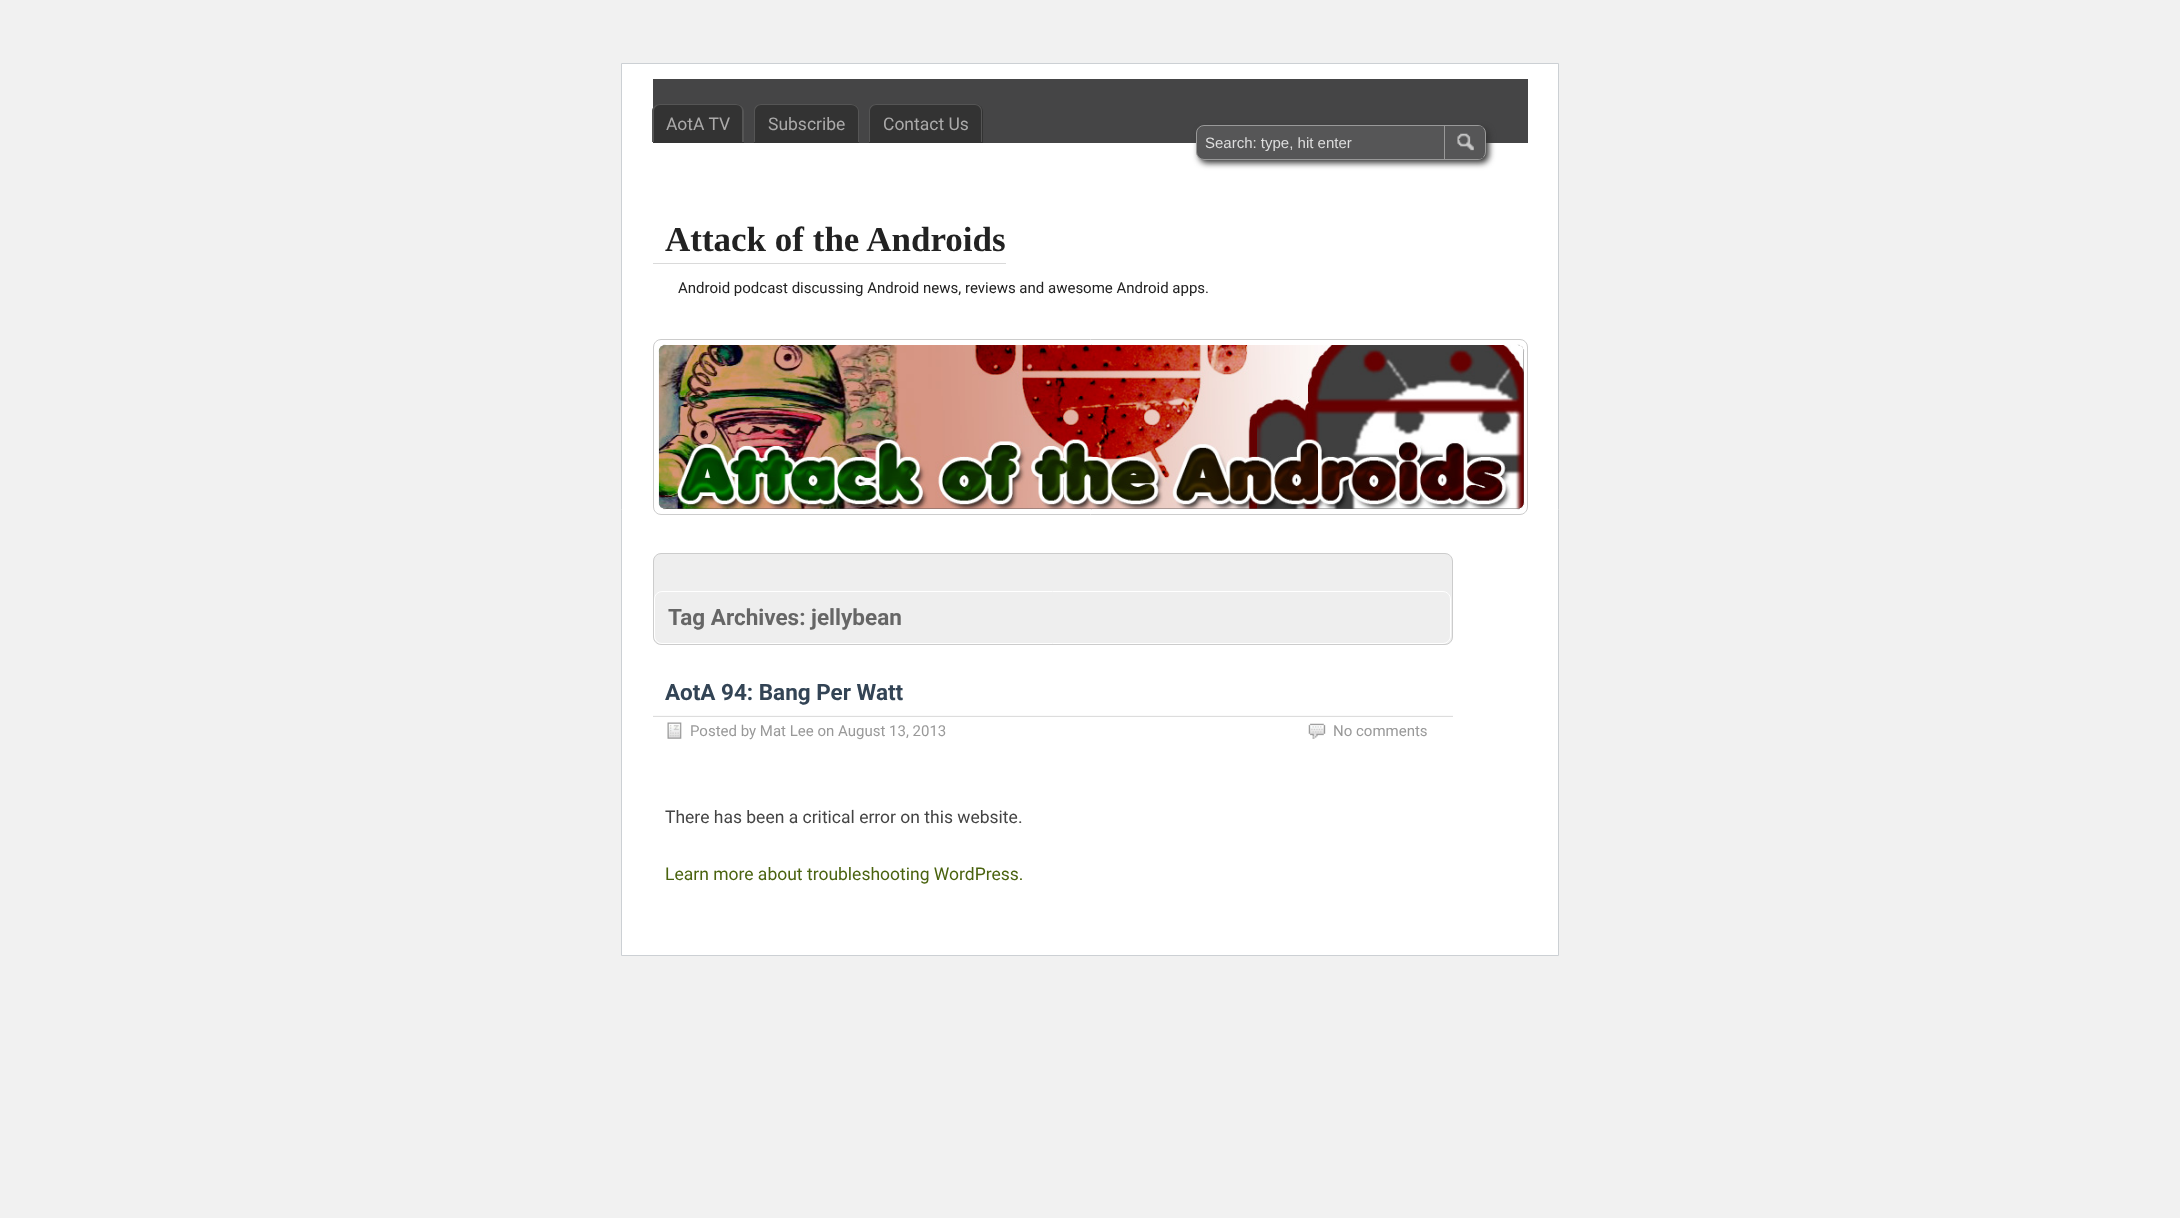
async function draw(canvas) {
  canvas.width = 2180;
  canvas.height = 1218;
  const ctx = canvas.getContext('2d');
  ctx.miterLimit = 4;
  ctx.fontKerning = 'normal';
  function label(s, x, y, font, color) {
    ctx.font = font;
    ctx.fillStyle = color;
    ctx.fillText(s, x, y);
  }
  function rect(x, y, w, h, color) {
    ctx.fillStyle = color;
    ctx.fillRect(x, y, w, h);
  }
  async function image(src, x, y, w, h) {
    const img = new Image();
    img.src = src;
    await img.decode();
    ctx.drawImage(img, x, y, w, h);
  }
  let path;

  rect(0, 0, 2180, 1218, '#f1f1f1');
  ctx.fillStyle = '#fff';
  ctx.beginPath();
  ctx.rect(621.5, 63.5, 937, 892);
  ctx.fill();
  ctx.strokeStyle = '#ccd0d4';
  ctx.stroke();
  rect(653, 79, 875, 64, '#454546');
  ctx.fillStyle = '#333';
  ctx.beginPath();
  ctx.roundRect(653, 104, 91, 39, [8, 8, 0, 0]);
  ctx.fill();
  ctx.fillStyle = '#555';
  path = new Path2D('M660 104H736C740 104 744 107 744 111V142H652V111C652 107 656 104 660 104ZM660 105H736C740 105 742 108 742 111V142H654V111C654 108 657 105 660 105Z');
  ctx.fill(path, 'evenodd');
  label('AotA TV', 666, 130, '17.5px Roboto', '#abaaaa');
  ctx.fillStyle = '#333';
  ctx.beginPath();
  ctx.roundRect(754, 104, 105, 39, [8, 8, 0, 0]);
  ctx.fill();
  ctx.fillStyle = '#555';
  path = new Path2D('M761 104H851C855 104 859 107 859 111V142H754V111C754 107 757 104 761 104ZM761 105H851C855 105 858 108 858 111V142H755V111C755 108 758 105 761 105Z');
  ctx.fill(path, 'evenodd');
  label('Subscribe', 768, 130, '17.5px Roboto', '#abaaaa');
  ctx.fillStyle = '#333';
  ctx.beginPath();
  ctx.roundRect(869, 104, 114, 39, [8, 8, 0, 0]);
  ctx.fill();
  ctx.fillStyle = '#555';
  path = new Path2D('M876 104H975C979 104 982 107 982 111V142H869V111C869 107 872 104 876 104ZM876 105H975C978 105 981 108 981 111V142H870V111C870 108 873 105 876 105Z');
  ctx.fill(path, 'evenodd');
  label('Contact Us', 883, 130, '17.5px Roboto', '#abaaaa');
  ctx.fillStyle = '#333';
  ctx.filter = 'blur(3px)';
  ctx.beginPath();
  ctx.roundRect(1199, 128, 290, 35, 8);
  ctx.fill();
  ctx.filter = 'none';
  ctx.fillStyle = '#565657';
  ctx.beginPath();
  ctx.roundRect(1196.5, 125.5, 289, 34, 7.5);
  ctx.fill();
  ctx.strokeStyle = '#999';
  ctx.stroke();
  ctx.save();
  ctx.beginPath();
  ctx.rect(1205, 134, 238, 17);
  ctx.clip();
  label('Search: type, hit enter', 1205, 148, '15px Liberation Sans', '#ddd');
  ctx.restore();
  ctx.save();
  ctx.beginPath();
  ctx.roundRect(1198, 126, 287, 33, 6);
  ctx.clip();
  rect(1445, 126, 38, 33, '#565657');
  ctx.restore();
  await image('assets/img1.png', 1457, 133, 17, 18);
  rect(1444, 126, 1, 33, '#999');
  rect(653, 263, 353, 1, '#dadada');
  label('Attack of the Androids', 665, 251, 'bold 35px Liberation Serif', '#222');
  label('Android podcast discussing Android news, reviews and awesome Android apps.', 678, 293, '15px Roboto', '#222');
  ctx.beginPath();
  ctx.roundRect(653.5, 339.5, 874, 175, 7.5);
  ctx.strokeStyle = '#ccc';
  ctx.stroke();
  ctx.fillStyle = '#565657';
  ctx.beginPath();
  ctx.roundRect(658.5, 344.5, 866, 165, 7.5);
  ctx.fill();
  ctx.strokeStyle = '#fff';
  ctx.stroke();
  await image('assets/img2.png', 658, 345, 866, 164);
  ctx.fillStyle = '#eee';
  ctx.beginPath();
  ctx.roundRect(653.5, 553.5, 799, 91, 7.5);
  ctx.fill();
  ctx.strokeStyle = '#ccc';
  ctx.stroke();
  ctx.beginPath();
  ctx.roundRect(654.5, 591.5, 796, 52, 7.5);
  ctx.strokeStyle = '#fff';
  ctx.stroke();
  label('Tag Archives: jellybean', 668, 625, 'bold 22.5px Roboto', '#666');
  rect(653, 715, 800, 1, '#fafafa');
  label('AotA 94: Bang Per Watt', 665, 700, 'bold 22.5px Roboto', '#345');
  rect(653, 716, 800, 1, '#ddd');
  await image('assets/img3.png', 667, 722, 15, 17);
  label('Posted by Mat Lee on August 13, 2013', 690, 736, '15px Roboto', '#999');
  await image('assets/img4.png', 1308, 723, 18, 16);
  label('No comments', 1333, 736, '15px Roboto', '#999');
  label('There has been a critical error on this website.', 665, 823, '17.5px Roboto', '#444');
  label('Learn more about troubleshooting WordPress.', 665, 880, '17.5px Roboto', '#4a630f');
}

draw(document.querySelector('canvas'));
